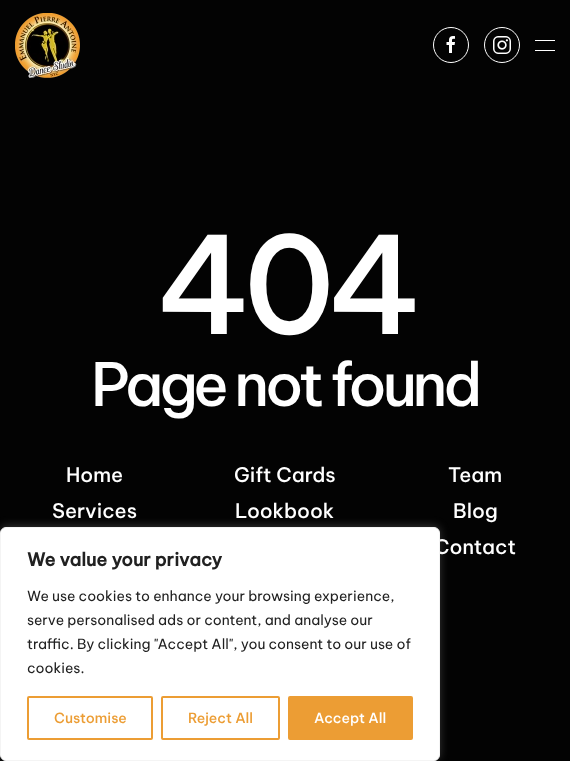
async function draw(canvas) {
  canvas.width = 570;
  canvas.height = 761;
  const ctx = canvas.getContext('2d');
  ctx.miterLimit = 4;
  ctx.fontKerning = 'normal';
  function label(s, x, y, font, color) {
    ctx.font = font;
    ctx.fillStyle = color;
    ctx.fillText(s, x, y);
  }
  function rect(x, y, w, h, color) {
    ctx.fillStyle = color;
    ctx.fillRect(x, y, w, h);
  }
  async function image(src, x, y, w, h) {
    const img = new Image();
    img.src = src;
    await img.decode();
    ctx.drawImage(img, x, y, w, h);
  }

  rect(0, 0, 570, 761, '#030303');
  await image('assets/img1.png', 15, 13, 65, 65);
  ctx.beginPath();
  ctx.arc(451, 45, 17.5, 0, 2 * Math.PI);
  ctx.strokeStyle = '#fff';
  ctx.stroke();
  await image('assets/img2.png', 446, 36, 9, 17);
  ctx.beginPath();
  ctx.arc(502, 45, 17.5, 0, 2 * Math.PI);
  ctx.stroke();
  await image('assets/img3.png', 493, 36, 18, 18);
  rect(535, 40, 20, 1, '#fff');
  rect(535, 50, 20, 1, '#fff');
  ctx.letterSpacing = '-8px';
  label('404', 156, 334, '500 134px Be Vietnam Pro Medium', '#fff');
  ctx.letterSpacing = '-4px';
  label('Page not found', 91, 406, '500 59.5px Be Vietnam Pro Medium', '#fff');
  ctx.letterSpacing = '0px';
  label('Home', 66, 482, '500 20px Be Vietnam Pro Medium', '#fff');
  label('Services', 52, 518, '500 20px Be Vietnam Pro Medium', '#fff');
  label('Gift Cards', 234, 482, '500 20px Be Vietnam Pro Medium', '#fff');
  label('Lookbook', 235, 518, '500 20px Be Vietnam Pro Medium', '#fff');
  label('Team', 448, 482, '500 20px Be Vietnam Pro Medium', '#fff');
  label('Blog', 453, 518, '500 20px Be Vietnam Pro Medium', '#fff');
  label('Contact', 434, 554, '500 20px Be Vietnam Pro Medium', '#fff');
  ctx.fillStyle = '#acabab4d';
  ctx.filter = 'blur(5px)';
  ctx.beginPath();
  ctx.roundRect(0, 526, 440, 234, 6);
  ctx.fill();
  ctx.filter = 'none';
  ctx.fillStyle = '#fff';
  ctx.beginPath();
  ctx.roundRect(0.5, 527.5, 439, 233, 5.5);
  ctx.fill();
  ctx.strokeStyle = '#f4f4f4';
  ctx.stroke();
  label('We value your privacy', 27, 566, 'bold 18px Be Vietnam Pro Medium', '#212121');
  label('We use cookies to enhance your browsing experience,', 27, 601, '14px Be Vietnam Pro', '#212121');
  label('serve personalised ads or content, and analyse our', 27, 625, '14px Be Vietnam Pro', '#212121');
  label('traffic. By clicking "Accept All", you consent to our use of', 27, 649, '14px Be Vietnam Pro', '#212121');
  label('cookies.', 27, 673, '14px Be Vietnam Pro', '#212121');
  ctx.beginPath();
  ctx.roundRect(28, 697, 124, 42, 1);
  ctx.strokeStyle = '#ec9d34';
  ctx.lineWidth = 2;
  ctx.stroke();
  label('Customise', 54, 723, '500 14px Be Vietnam Pro Medium', '#ec9d34');
  ctx.beginPath();
  ctx.roundRect(162, 697, 117, 42, 1);
  ctx.stroke();
  label('Reject All', 188, 723, '500 14px Be Vietnam Pro Medium', '#ec9d34');
  ctx.beginPath();
  ctx.roundRect(289, 697, 123, 42, 1);
  ctx.fill();
  ctx.stroke();
  label('Accept All', 314, 723, '500 14px Be Vietnam Pro Medium', '#fff');
}

draw(document.querySelector('canvas'));
